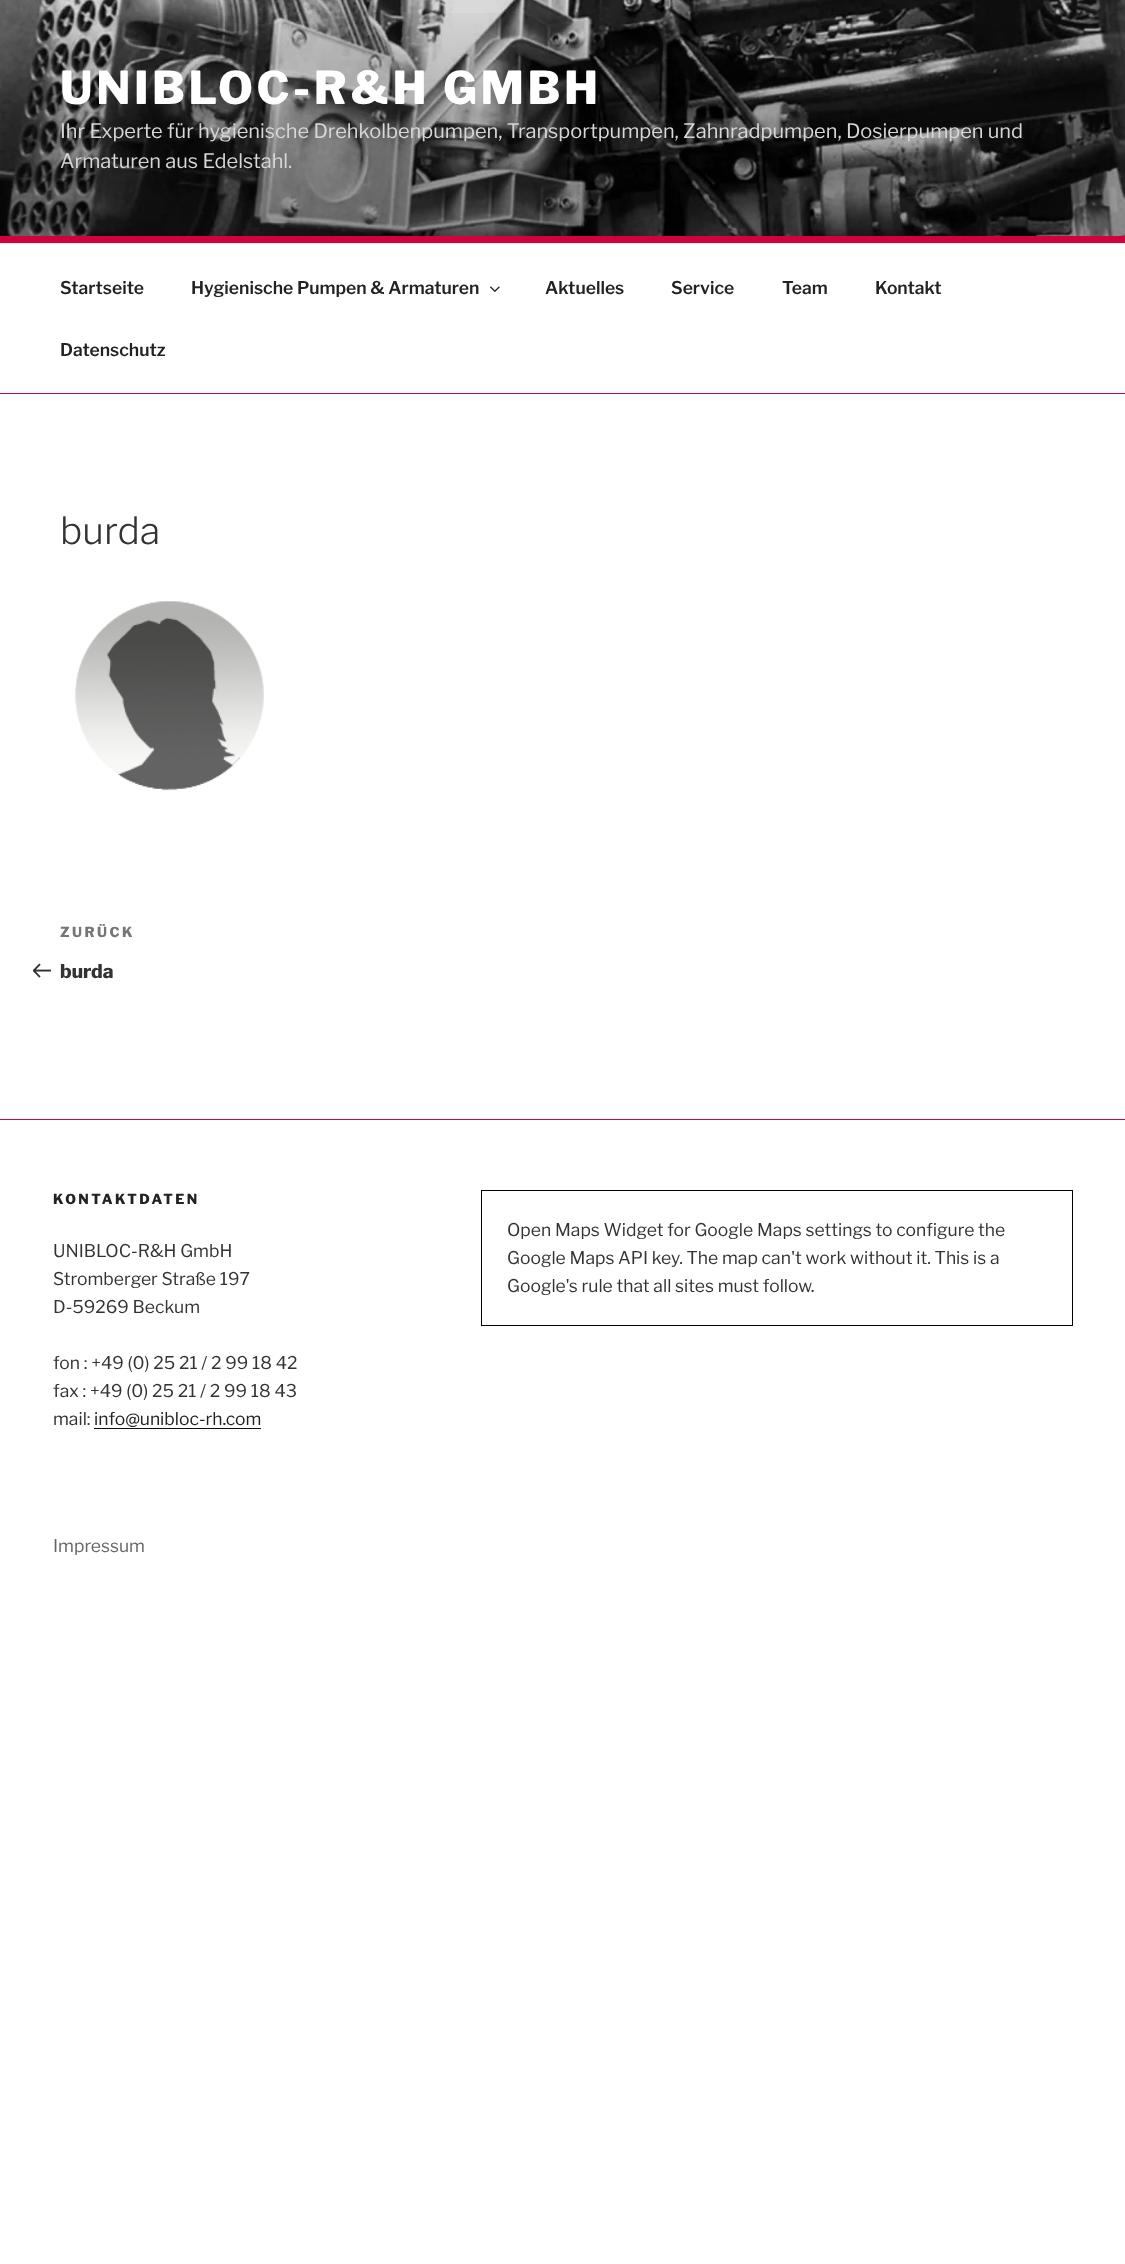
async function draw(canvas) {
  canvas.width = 1125;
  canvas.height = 2264;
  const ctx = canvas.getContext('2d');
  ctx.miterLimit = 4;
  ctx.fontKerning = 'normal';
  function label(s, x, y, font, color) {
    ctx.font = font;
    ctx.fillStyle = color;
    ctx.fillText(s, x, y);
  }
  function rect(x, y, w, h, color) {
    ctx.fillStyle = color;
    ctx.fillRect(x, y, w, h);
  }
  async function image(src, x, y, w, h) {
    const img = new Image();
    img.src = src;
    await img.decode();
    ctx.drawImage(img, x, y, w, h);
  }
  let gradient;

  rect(0, 0, 1125, 2264, '#fff');
  await image('assets/img1.png', 0, 0, 1125, 236);
  gradient = ctx.createLinearGradient(563, 0, 563, 243);
  gradient.addColorStop(0, '#00000000');
  gradient.addColorStop(0.75, '#0000004d');
  gradient.addColorStop(1, '#0000004d');
  ctx.fillStyle = gradient;
  ctx.fillRect(0, 13, 1125, 223);
  rect(0, 236, 1125, 7, '#d0043c');
  ctx.letterSpacing = '3.6px';
  label('UNIBLOC-R&H GMBH', 60, 104, '800 45px Libre Franklin', '#fff');
  ctx.letterSpacing = '0px';
  label('Ihr Experte für hygienische Drehkolbenpumpen, Transportpumpen, Zahnradpumpen, Dosierpumpen und', 60, 138, '20px Libre Franklin', '#d7d7d7');
  label('Armaturen aus Edelstahl.', 60, 168, '20px Libre Franklin', '#d7d7d7');
  rect(0, 243, 1125, 1, '#eee');
  rect(0, 393, 1125, 1, '#d0043c');
  label('Startseite', 60, 294, '600 17.5px Libre Franklin', '#222');
  label('Hygienische Pumpen & Armaturen', 191, 294, '600 17.5px Libre Franklin', '#222');
  await image('assets/img2.png', 490, 286, 10, 6);
  label('Aktuelles', 545, 294, '600 17.5px Libre Franklin', '#222');
  label('Service', 671, 294, '600 17.5px Libre Franklin', '#222');
  label('Team', 782, 294, '600 17.5px Libre Franklin', '#222');
  label('Kontakt', 875, 294, '600 17.5px Libre Franklin', '#222');
  label('Datenschutz', 60, 356, '600 17.5px Libre Franklin', '#222');
  label('burda', 60, 544, '300 37.5px Libre Franklin', '#333');
  await image('assets/img3.png', 75, 601, 189, 190);
  ctx.letterSpacing = '2.5px';
  label('ZURÜCK', 60, 937, '800 13.75px Libre Franklin', '#767676');
  await image('assets/img4.png', 33, 963, 18, 15);
  ctx.letterSpacing = '0px';
  label('burda', 60, 978, '800 19px Libre Franklin', '#333');
  rect(0, 1119, 1125, 1, '#d0043c');
  ctx.letterSpacing = '2.5px';
  label('KONTAKTDATEN', 53, 1204, '800 13.75px Libre Franklin', '#222');
  ctx.letterSpacing = '0px';
  label('UNIBLOC-R&H GmbH', 53, 1257, '17.5px Libre Franklin', '#333');
  label('Stromberger Straße 197', 53, 1285, '17.5px Libre Franklin', '#333');
  label('D-59269 Beckum', 53, 1313, '17.5px Libre Franklin', '#333');
  label('fon : +49 (0) 25 21 / 2 99 18 42', 53, 1369, '17.5px Libre Franklin', '#333');
  label('fax : +49 (0) 25 21 / 2 99 18 43', 53, 1397, '17.5px Libre Franklin', '#333');
  label('mail:', 53, 1425, '17.5px Libre Franklin', '#333');
  label('info@unibloc-rh.com', 94, 1425, '17.5px Libre Franklin', '#222');
  rect(94, 1428, 167, 1, '#0f0f0f');
  ctx.strokeStyle = '#000';
  ctx.strokeRect(481.5, 1190.5, 591, 135);
  label('Open Maps Widget for Google Maps settings to configure the', 507, 1236, '17.5px Libre Franklin', '#333');
  label('Google Maps API key. The map can\'t work without it. This is a', 507, 1264, '17.5px Libre Franklin', '#333');
  label('Google\'s rule that all sites must follow.', 507, 1292, '17.5px Libre Franklin', '#333');
  label('Impressum', 53, 1552, '17.5px Libre Franklin', '#666');
}

draw(document.querySelector('canvas'));
